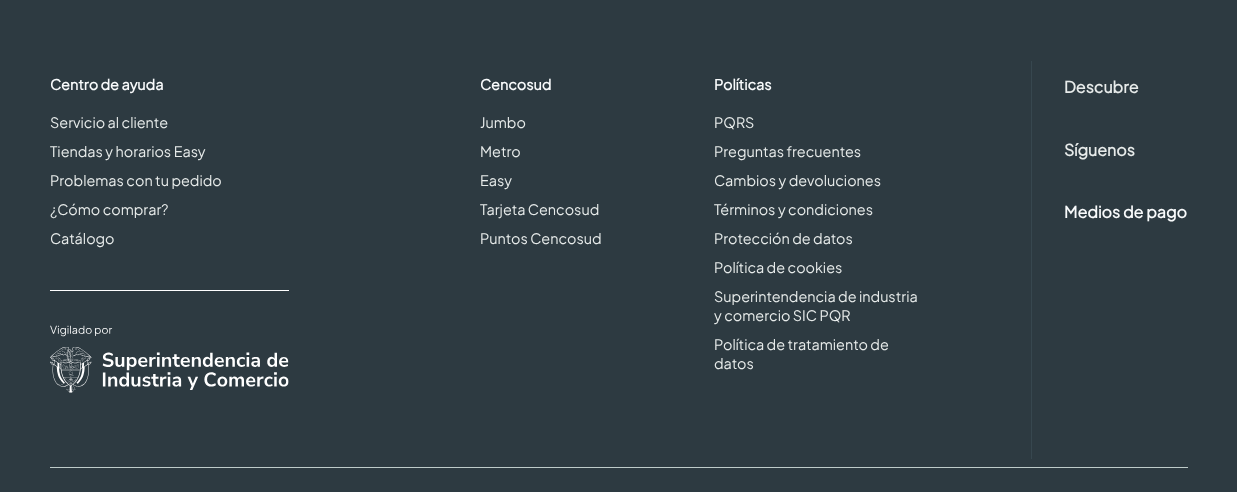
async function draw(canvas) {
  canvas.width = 1237;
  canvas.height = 492;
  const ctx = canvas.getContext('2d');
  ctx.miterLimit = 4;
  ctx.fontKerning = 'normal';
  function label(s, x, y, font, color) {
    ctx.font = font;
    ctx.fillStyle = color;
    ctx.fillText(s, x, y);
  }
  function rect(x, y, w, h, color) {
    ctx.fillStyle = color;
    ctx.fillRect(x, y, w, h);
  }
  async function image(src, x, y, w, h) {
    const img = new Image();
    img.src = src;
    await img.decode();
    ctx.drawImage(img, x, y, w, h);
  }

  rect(0, 0, 1237, 492, '#2d3a41');
  label('Centro de ayuda', 50, 90, 'bold 14.4px Plus Jakarta Sans', '#f9fbfc');
  label('Servicio al cliente', 50, 128, '14.4px Plus Jakarta Sans', '#e7ebea');
  label('Tiendas y horarios Easy', 50, 157, '14.4px Plus Jakarta Sans', '#e7ebea');
  label('Problemas con tu pedido', 50, 186, '14.4px Plus Jakarta Sans', '#e7ebea');
  label('¿Cómo comprar?', 50, 215, '14.4px Plus Jakarta Sans', '#e7ebea');
  label('Catálogo', 50, 244, '14.4px Plus Jakarta Sans', '#e7ebea');
  rect(50, 290, 239, 1, '#fff');
  await image('assets/img1.png', 50, 325, 239, 68);
  label('Cencosud', 480, 90, 'bold 14.4px Plus Jakarta Sans', '#f9fbfc');
  label('Jumbo', 480, 128, '14.4px Plus Jakarta Sans', '#e7ebea');
  label('Metro', 480, 157, '14.4px Plus Jakarta Sans', '#e7ebea');
  label('Easy', 480, 186, '14.4px Plus Jakarta Sans', '#e7ebea');
  label('Tarjeta Cencosud', 480, 215, '14.4px Plus Jakarta Sans', '#e7ebea');
  label('Puntos Cencosud', 480, 244, '14.4px Plus Jakarta Sans', '#e7ebea');
  label('Políticas', 714, 90, 'bold 14.4px Plus Jakarta Sans', '#f9fbfc');
  label('PQRS', 714, 128, '14.4px Plus Jakarta Sans', '#e7ebea');
  label('Preguntas frecuentes', 714, 157, '14.4px Plus Jakarta Sans', '#e7ebea');
  label('Cambios y devoluciones', 714, 186, '14.4px Plus Jakarta Sans', '#e7ebea');
  label('Términos y condiciones', 714, 215, '14.4px Plus Jakarta Sans', '#e7ebea');
  label('Protección de datos', 714, 244, '14.4px Plus Jakarta Sans', '#e7ebea');
  label('Política de cookies', 714, 273, '14.4px Plus Jakarta Sans', '#e7ebea');
  label('Superintendencia de industria', 714, 302, '14.4px Plus Jakarta Sans', '#e7ebea');
  label('y comercio SIC PQR', 714, 321, '14.4px Plus Jakarta Sans', '#e7ebea');
  label('Política de tratamiento de', 714, 350, '14.4px Plus Jakarta Sans', '#e7ebea');
  label('datos', 714, 369, '14.4px Plus Jakarta Sans', '#e7ebea');
  rect(1031, 61, 1, 398, '#37474f');
  label('Descubre', 1064, 93, 'bold 16px Plus Jakarta Sans', '#e7ebea');
  label('Síguenos', 1064, 156, 'bold 16px Plus Jakarta Sans', '#e7ebea');
  label('Medios de pago', 1064, 218, 'bold 16px Plus Jakarta Sans', '#f9fbfc');
  rect(50, 467, 1138, 1, '#becbc9');
}

draw(document.querySelector('canvas'));
